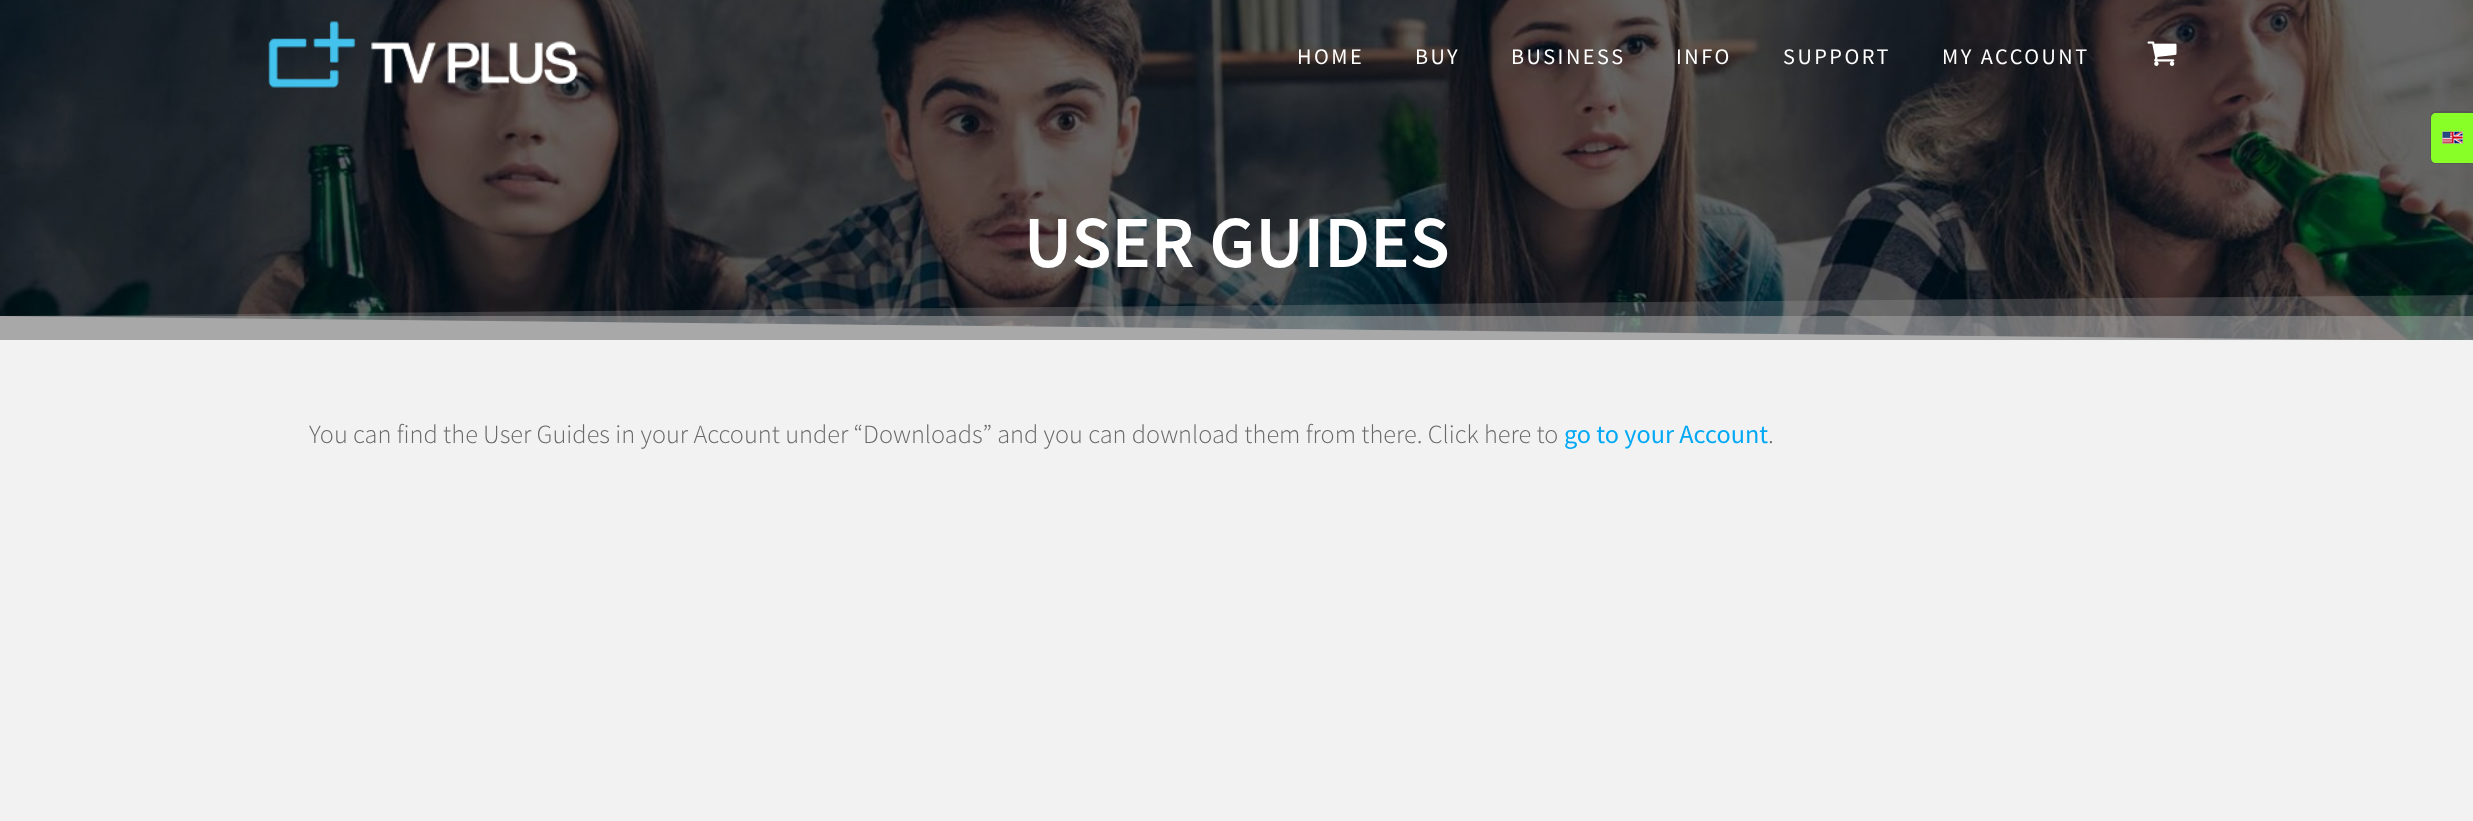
async function draw(canvas) {
  canvas.width = 2473;
  canvas.height = 821;
  const ctx = canvas.getContext('2d');
  ctx.miterLimit = 4;
  ctx.fontKerning = 'normal';
  function label(s, x, y, font, color) {
    ctx.font = font;
    ctx.fillStyle = color;
    ctx.fillText(s, x, y);
  }
  function rect(x, y, w, h, color) {
    ctx.fillStyle = color;
    ctx.fillRect(x, y, w, h);
  }
  async function image(src, x, y, w, h) {
    const img = new Image();
    img.src = src;
    await img.decode();
    ctx.drawImage(img, x, y, w, h);
  }
  let path;

  rect(0, 0, 2473, 821, '#f2f2f2');
  await image('assets/img4.png', 0, 0, 2473, 340);
  await image('assets/img1.png', 268, 21, 310, 67);
  ctx.letterSpacing = '2.5px';
  label('HOME', 1297, 64, '22.25px Source Sans Pro', '#fff');
  label('BUY', 1415, 64, '22.25px Source Sans Pro', '#fff');
  label('BUSINESS', 1511, 64, '22.25px Source Sans Pro', '#fff');
  label('INFO', 1676, 64, '22.25px Source Sans Pro', '#fff');
  label('SUPPORT', 1783, 64, '22.25px Source Sans Pro', '#fff');
  label('MY ACCOUNT', 1942, 64, '22.25px Source Sans Pro', '#fff');
  await image('assets/img2.png', 2147, 41, 30, 25);
  ctx.fillStyle = '#0000001a';
  ctx.filter = 'blur(0.5px)';
  ctx.beginPath();
  ctx.roundRect(2430, 111, 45, 53, 6);
  ctx.fill();
  ctx.filter = 'none';
  ctx.fillStyle = '#89ff28';
  path = new Path2D('M2436 113H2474V163H2436C2433 163 2431 161 2431 158V118C2431 115 2433 113 2436 113Z');
  ctx.fill(path);
  await image('assets/img3.png', 2442, 131, 21, 13);
  ctx.letterSpacing = '0px';
  label('USER GUIDES', 1024, 267, '600 73.5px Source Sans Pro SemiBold', '#fff');
  ctx.save();
  ctx.beginPath();
  ctx.rect(0, 295, 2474, 45);
  ctx.clip();
  ctx.fillStyle = '#a8a8a8';
  path = new Path2D('M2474 341H-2V316Z');
  ctx.fill(path);
  ctx.restore();
  rect(5, 316, 2468, 24, '#a8a8a880');
  ctx.save();
  ctx.beginPath();
  ctx.rect(0, 295, 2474, 45);
  ctx.clip();
  ctx.fillStyle = '#a8a8a840';
  path = new Path2D('M-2 341H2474V295L-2 316Z');
  ctx.fill(path);
  ctx.restore();
  label('You can find the User Guides in your Account under “Downloads” and you can download them from there. Click here to', 309, 443, '300 26.25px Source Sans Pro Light', '#686868');
  label('go to your Account', 1564, 443, '26.25px Source Sans Pro', '#03a9f4');
  label('.', 1768, 443, '300 26.25px Source Sans Pro Light', '#686868');
}

draw(document.querySelector('canvas'));
